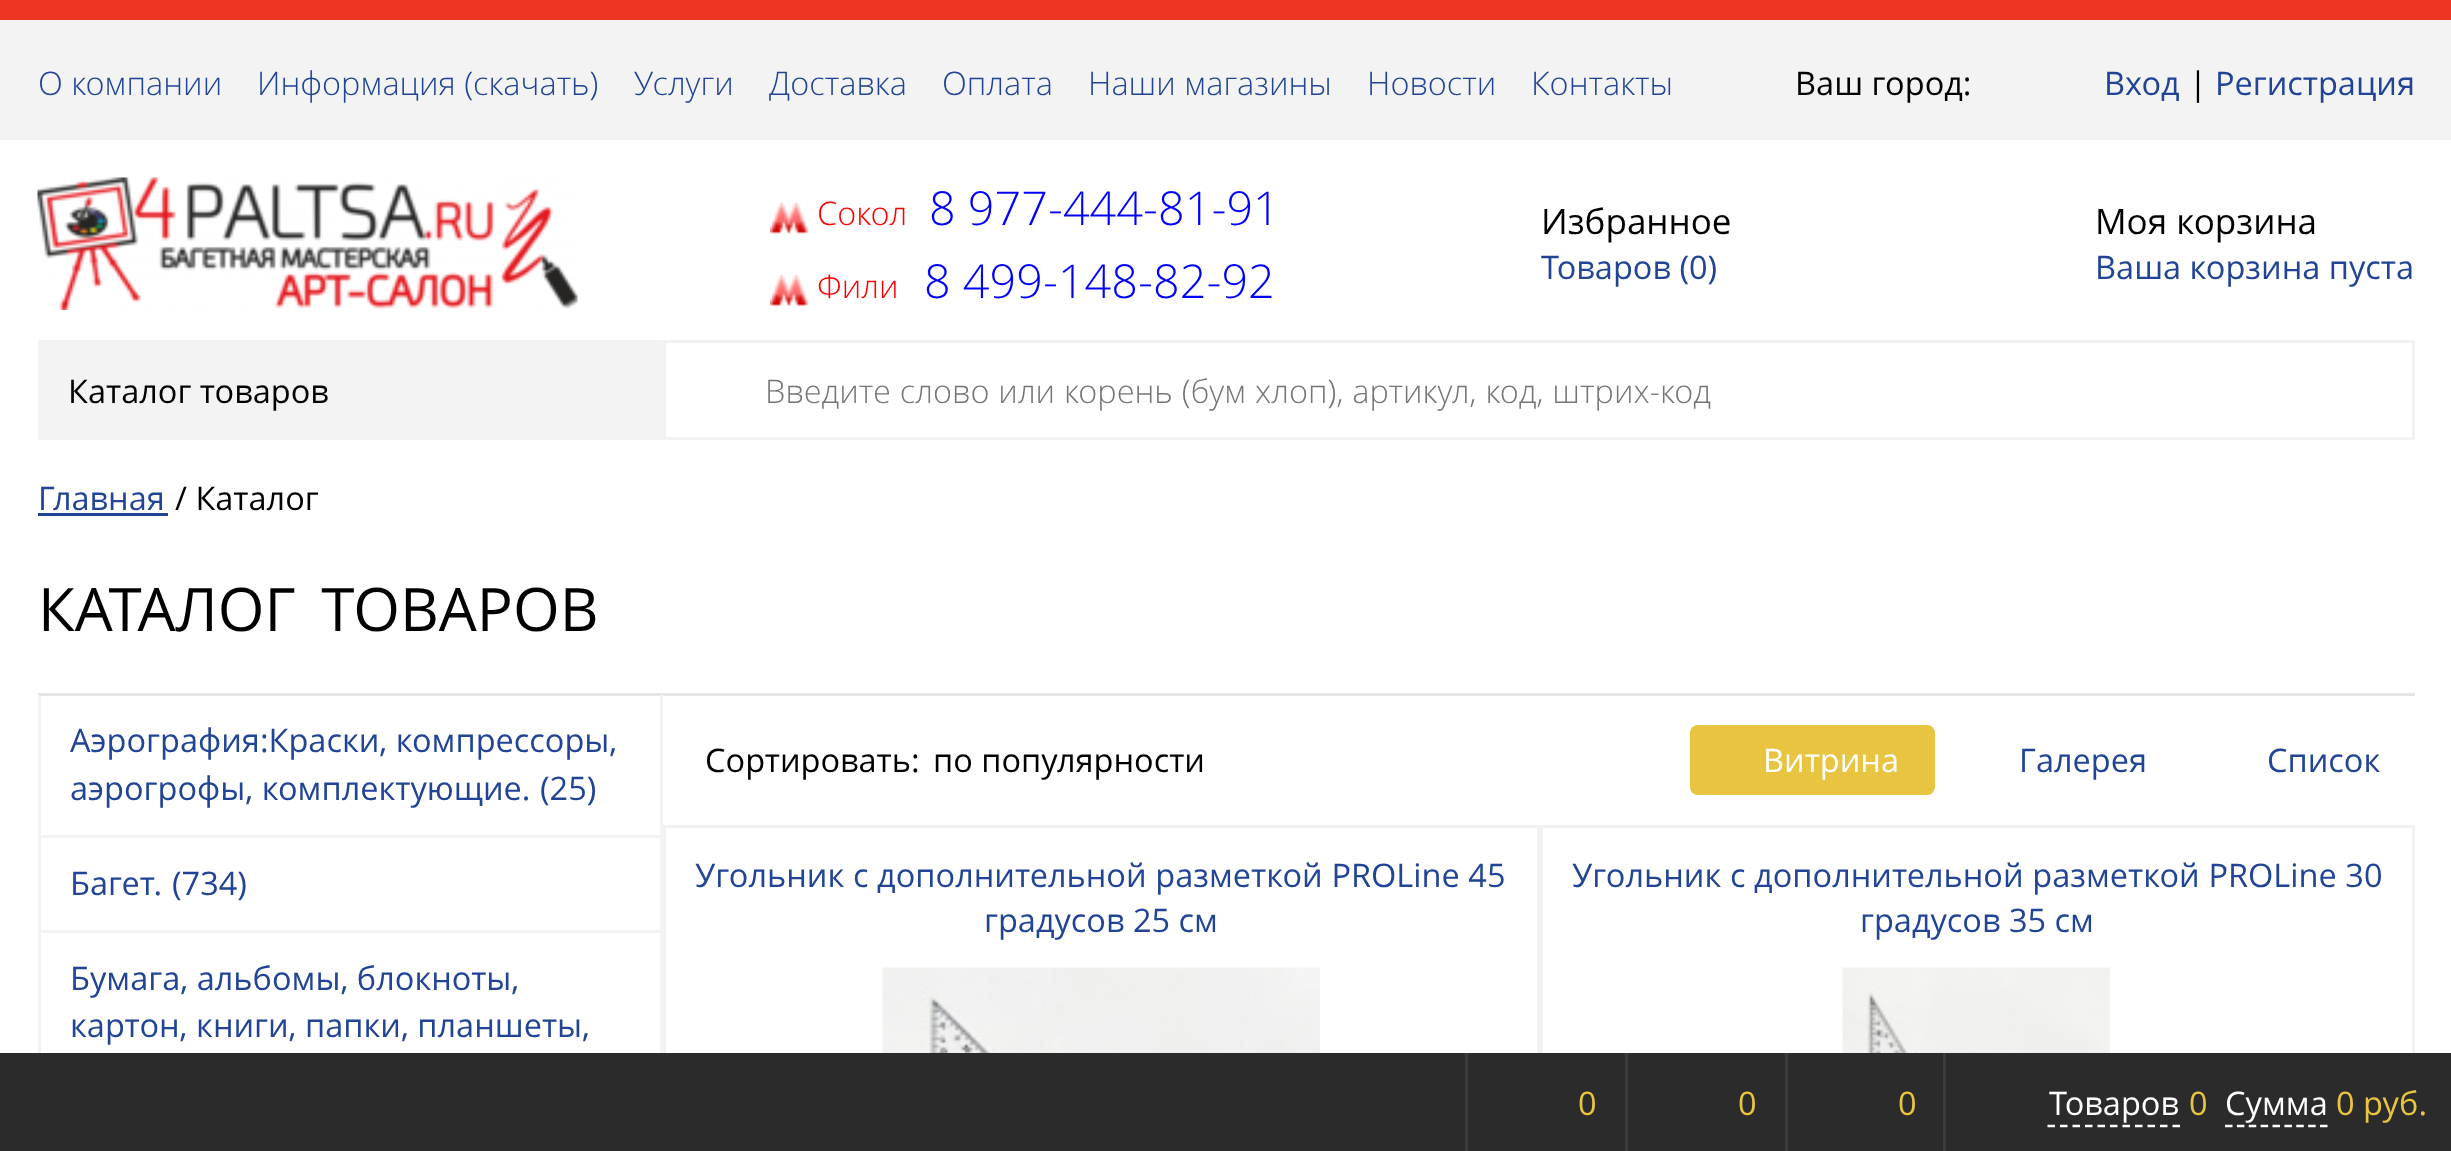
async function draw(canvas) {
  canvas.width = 2451;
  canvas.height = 1151;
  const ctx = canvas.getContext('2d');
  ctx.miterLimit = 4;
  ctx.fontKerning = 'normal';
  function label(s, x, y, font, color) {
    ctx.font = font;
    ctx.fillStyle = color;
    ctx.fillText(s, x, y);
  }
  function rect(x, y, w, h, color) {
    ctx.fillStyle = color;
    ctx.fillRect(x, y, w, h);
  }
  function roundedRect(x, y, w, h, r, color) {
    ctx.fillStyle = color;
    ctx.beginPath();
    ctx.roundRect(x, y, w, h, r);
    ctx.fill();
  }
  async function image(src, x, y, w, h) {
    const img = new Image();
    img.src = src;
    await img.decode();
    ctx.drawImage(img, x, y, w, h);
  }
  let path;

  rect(0, 0, 2451, 1151, '#fff');
  rect(0, 0, 2451, 20, '#ee3523');
  rect(0, 20, 2451, 120, '#f3f3f3');
  label('О компании', 38, 95, '300 32.5px Open Sans', '#214496');
  label('Информация (скачать)', 257, 95, '300 32.5px Open Sans', '#214496');
  label('Услуги', 634, 95, '300 32.5px Open Sans', '#214496');
  label('Доставка', 769, 95, '300 32.5px Open Sans', '#214496');
  label('Оплата', 942, 95, '300 32.5px Open Sans', '#214496');
  label('Наши магазины', 1088, 95, '300 32.5px Open Sans', '#214496');
  label('Новости', 1367, 95, '300 32.5px Open Sans', '#214496');
  label('Контакты', 1531, 95, '300 32.5px Open Sans', '#214496');
  label('Ваш город:', 1795, 95, '32.5px Open Sans', '#000');
  label('Вход', 2104, 95, '32.5px Open Sans', '#214496');
  label('|', 2189, 95, '32.5px Open Sans', '#000');
  label('Регистрация', 2215, 95, '32.5px Open Sans', '#214496');
  await image('assets/img1.png', 37, 177, 541, 133);
  await image('assets/img2.png', 770, 202, 39, 32);
  label('Сокол', 817, 225, '300 32.5px Open Sans', '#f00');
  label('8 977-444-81-91', 929, 225, '300 46.75px Open Sans', '#00f');
  await image('assets/img3.png', 770, 274, 39, 32);
  label('Фили', 817, 298, '300 32.5px Open Sans', '#f00');
  label('8 499-148-82-92', 924, 298, '300 46.75px Open Sans', '#00f');
  label('Избранное', 1541, 234, '35px Open Sans', '#000');
  label('Товаров (0)', 1541, 279, '32.5px Open Sans', '#214496');
  label('Моя корзина', 2095, 234, '35px Open Sans', '#000');
  label('Ваша корзина пуста', 2095, 279, '32.5px Open Sans', '#214496');
  rect(38, 340, 625, 100, '#f3f3f3');
  label('Каталог товаров', 68, 403, '32.5px Open Sans', '#000');
  ctx.strokeStyle = '#f2f2f2';
  ctx.lineWidth = 3;
  ctx.strokeRect(664.5, 341.5, 1749, 97);
  ctx.wordSpacing = '0.5px';
  label('Введите слово или корень (бум хлоп), артикул, код, штрих-код', 765, 403, '300 32.5px Open Sans', '#757575');
  ctx.wordSpacing = '0px';
  label('Главная', 38, 510, '32.5px Open Sans', '#214496');
  rect(38, 513, 130, 3, '#214496');
  label('/ Каталог', 175, 510, '32.5px Open Sans', '#000');
  ctx.wordSpacing = '10px';
  label('КАТАЛОГ ТОВАРОВ', 38, 631, '60px Open Sans', '#000');
  rect(38, 693, 2377, 3, '#e5e5e5');
  rect(660, 695, 3, 358, '#f3f3f3');
  rect(38, 835, 625, 3, '#f3f3f3');
  rect(38, 695, 3, 143, '#f3f3f3');
  ctx.wordSpacing = '0px';
  label('Аэрография:Краски, компрессоры,', 70, 752, '32.5px Open Sans', '#214496');
  label('аэрогрофы, комплектующие.', 70, 800, '32.5px Open Sans', '#214496');
  label('(25)', 540, 800, '32.5px Open Sans', '#214496');
  rect(38, 930, 625, 3, '#f3f3f3');
  rect(38, 838, 3, 215, '#f3f3f3');
  label('Багет.', 70, 895, '32.5px Open Sans', '#214496');
  label('(734)', 172, 895, '32.5px Open Sans', '#214496');
  label('Бумага, альбомы, блокноты,', 70, 990, '32.5px Open Sans', '#214496');
  label('картон, книги, папки, планшеты,', 70, 1037, '32.5px Open Sans', '#214496');
  label('Сортировать:', 705, 772, '32.5px Open Sans', '#000');
  label('по популярности', 933, 772, '32.5px Open Sans', '#000');
  roundedRect(1690, 725, 245, 70, 8, '#e9c440');
  label('Витрина', 1763, 772, '32.5px Open Sans', '#fff');
  label('Галерея', 2019, 772, '32.5px Open Sans', '#214496');
  label('Список', 2267, 772, '32.5px Open Sans', '#214496');
  ctx.strokeRect(664.5, 826.5, 874, 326);
  ctx.wordSpacing = '0.25px';
  label('Угольник с дополнительной разметкой PROLine 45', 695, 887, '32.5px Open Sans', '#214496');
  ctx.wordSpacing = '0px';
  label('градусов 25 см', 984, 932, '32.5px Open Sans', '#214496');
  await image('assets/img4.png', 882, 967, 438, 86);
  ctx.strokeRect(1541.5, 826.5, 872, 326);
  ctx.wordSpacing = '0.25px';
  label('Угольник с дополнительной разметкой PROLine 30', 1572, 887, '32.5px Open Sans', '#214496');
  ctx.wordSpacing = '0px';
  label('градусов 35 см', 1860, 932, '32.5px Open Sans', '#214496');
  await image('assets/img5.png', 1842, 967, 268, 86);
  rect(0, 1053, 2451, 98, '#2b2b2b');
  rect(1465, 1053, 3, 98, '#3c3c3c');
  label('0', 1578, 1115, '32.5px Open Sans', '#e9c440');
  rect(1625, 1053, 3, 98, '#3c3c3c');
  label('0', 1738, 1115, '32.5px Open Sans', '#e9c440');
  rect(1785, 1053, 3, 98, '#3c3c3c');
  label('0', 1898, 1115, '32.5px Open Sans', '#e9c440');
  rect(1943, 1053, 3, 98, '#3c3c3c');
  label('Товаров', 2049, 1115, '32.5px Open Sans', '#fff');
  path = new Path2D('M2047.5 1126H2180');
  ctx.strokeStyle = '#fff';
  ctx.lineWidth = 2.5;
  ctx.setLineDash([7.5, 5]);
  ctx.stroke(path);
  label('0', 2189, 1115, '32.5px Open Sans', '#e9c440');
  label('Сумма', 2225, 1115, '32.5px Open Sans', '#fff');
  path = new Path2D('M2225 1126H2327.5');
  ctx.setLineDash([7.5, 4.38]);
  ctx.stroke(path);
  label('0 руб.', 2336, 1115, '32.5px Open Sans', '#e9c440');
}

draw(document.querySelector('canvas'));
